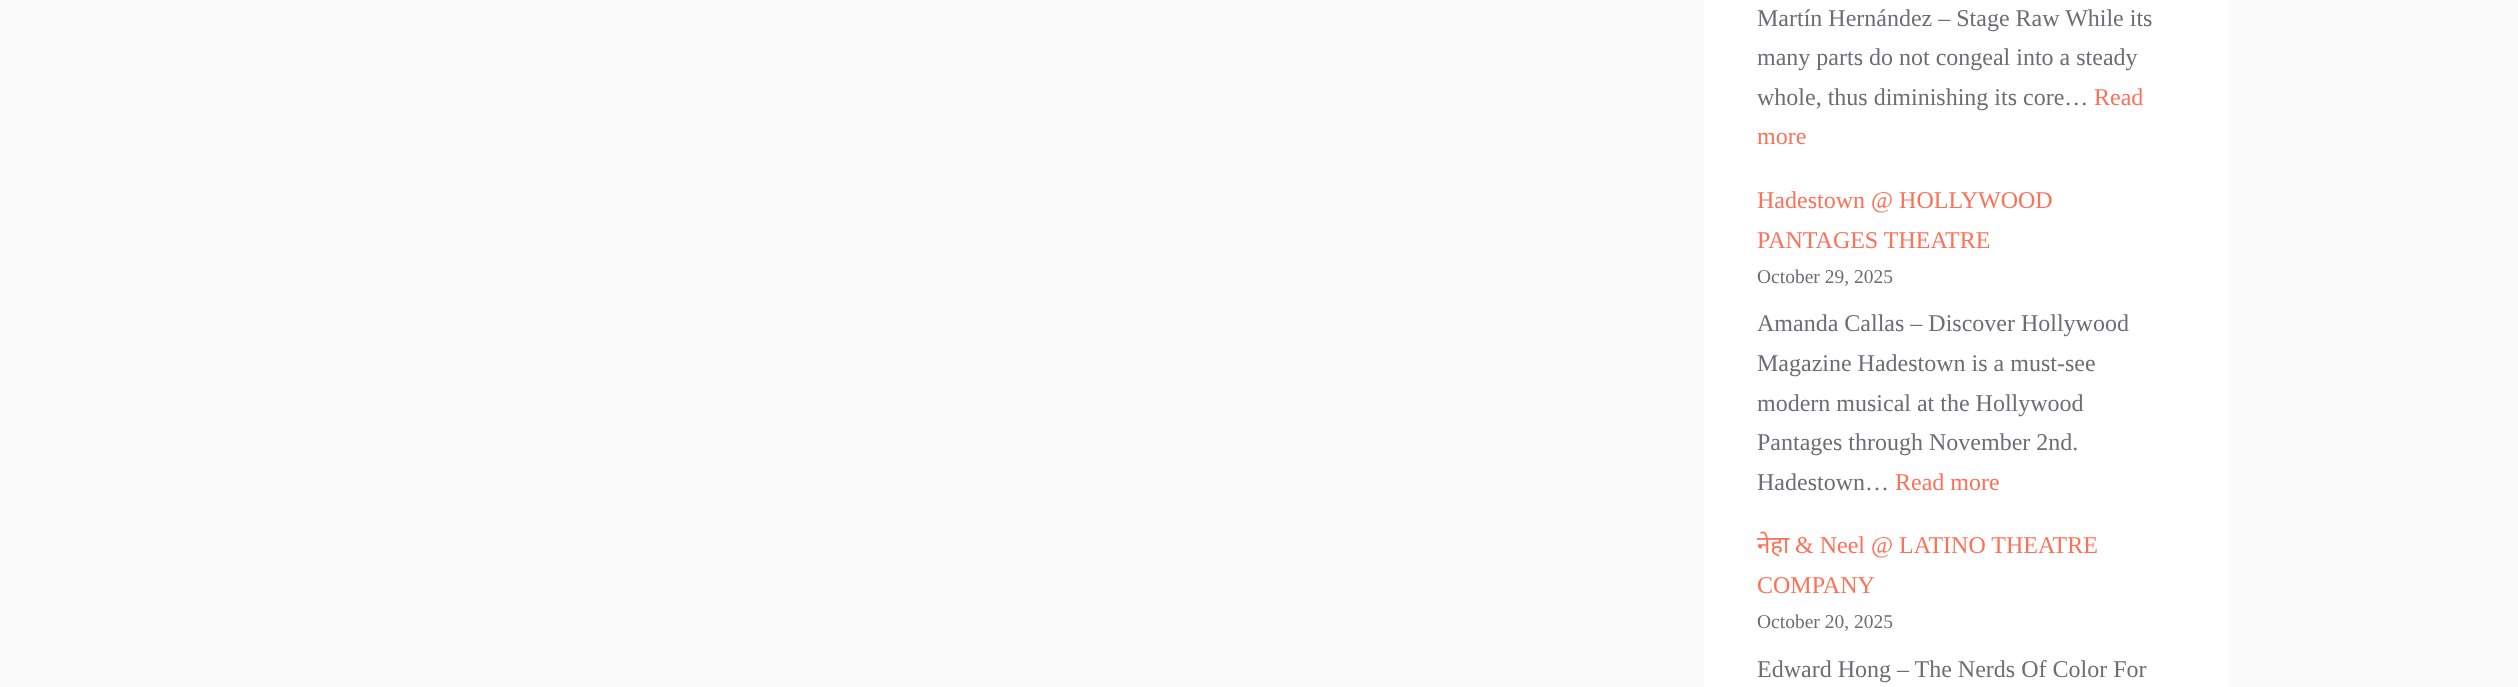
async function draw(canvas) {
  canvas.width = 2518;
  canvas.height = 687;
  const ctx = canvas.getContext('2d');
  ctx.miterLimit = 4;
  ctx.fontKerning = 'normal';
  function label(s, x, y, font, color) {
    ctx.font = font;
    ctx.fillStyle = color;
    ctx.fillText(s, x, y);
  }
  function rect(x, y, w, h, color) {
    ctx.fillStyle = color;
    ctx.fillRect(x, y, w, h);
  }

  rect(0, 0, 2518, 687, '#fbfbfb');
  rect(1704, 0, 524, 687, '#fff');
  label('Martín Hernández – Stage Raw While its', 1757, 26, '24px Liberation Serif', '#6e6d76');
  label('many parts do not congeal into a steady', 1757, 65, '24px Liberation Serif', '#6e6d76');
  label('whole, thus diminishing its core…', 1757, 105, '24px Liberation Serif', '#6e6d76');
  label('Read', 2094, 105, '24px Liberation Serif', '#fb7258');
  label('more', 1757, 144, '24px Liberation Serif', '#fb7258');
  label('Hadestown @ HOLLYWOOD', 1757, 208, '24px Liberation Serif', '#fb7258');
  label('PANTAGES THEATRE', 1757, 248, '24px Liberation Serif', '#fb7258');
  label('October 29, 2025', 1757, 283, '19.5px Liberation Serif', '#6e6d76');
  label('Amanda Callas – Discover Hollywood', 1757, 331, '24px Liberation Serif', '#6e6d76');
  label('Magazine Hadestown is a must-see', 1757, 371, '24px Liberation Serif', '#6e6d76');
  label('modern musical at the Hollywood', 1757, 411, '24px Liberation Serif', '#6e6d76');
  label('Pantages through November 2nd.', 1757, 450, '24px Liberation Serif', '#6e6d76');
  label('Hadestown…', 1757, 490, '24px Liberation Serif', '#6e6d76');
  label('Read more', 1895, 490, '24px Liberation Serif', '#fb7258');
  label('नेहा', 1757, 553, '24px Noto Sans', '#fb7258');
  label('& Neel @ LATINO THEATRE', 1795, 553, '24px Liberation Serif', '#fb7258');
  label('COMPANY', 1757, 593, '24px Liberation Serif', '#fb7258');
  label('October 20, 2025', 1757, 628, '19.5px Liberation Serif', '#6e6d76');
  label('Edward Hong – The Nerds Of Color For', 1757, 677, '24px Liberation Serif', '#6e6d76');
}

draw(document.querySelector('canvas'));
